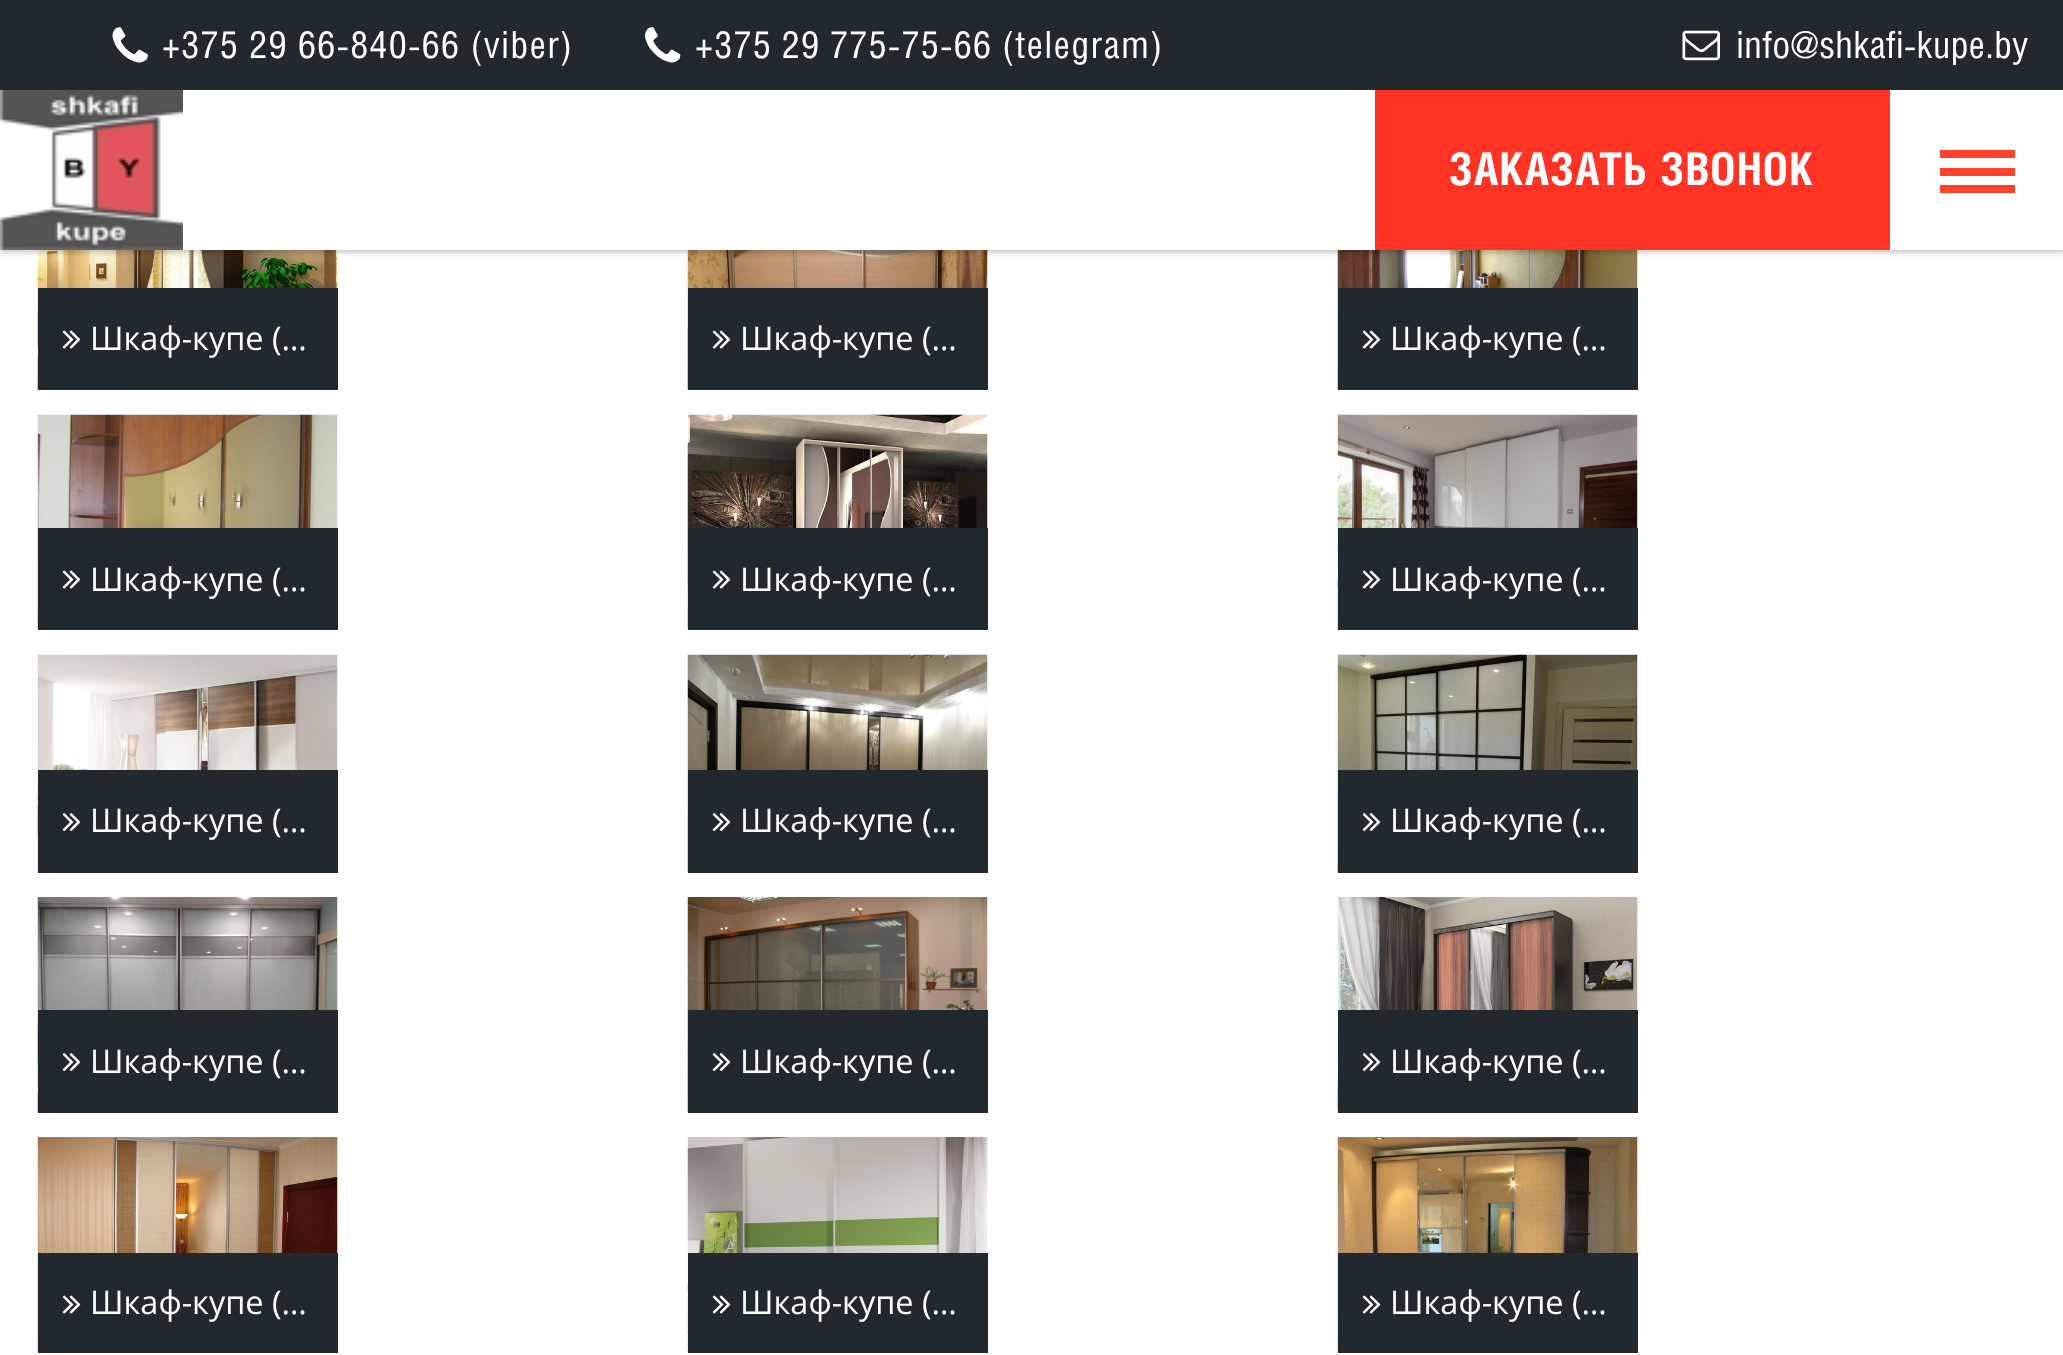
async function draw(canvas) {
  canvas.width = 2063;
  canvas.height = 1355;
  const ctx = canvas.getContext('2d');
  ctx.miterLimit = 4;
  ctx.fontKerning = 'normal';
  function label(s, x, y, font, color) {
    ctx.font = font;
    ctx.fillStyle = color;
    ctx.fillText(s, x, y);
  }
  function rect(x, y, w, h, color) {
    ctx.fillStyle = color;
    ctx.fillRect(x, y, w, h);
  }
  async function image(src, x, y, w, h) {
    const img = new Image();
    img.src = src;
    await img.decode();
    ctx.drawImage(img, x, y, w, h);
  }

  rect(0, 0, 2063, 1355, '#fff');
  await image('assets/img5.png', 37, 250, 301, 140);
  await image('assets/img7.png', 687, 250, 301, 140);
  await image('assets/img8.png', 1337, 250, 301, 140);
  ctx.fillStyle = '#00000033';
  ctx.filter = 'blur(2.5px)';
  ctx.beginPath();
  ctx.rect(0, 3, 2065, 250);
  ctx.fill();
  ctx.filter = 'none';
  rect(183, 90, 1880, 160, '#fff');
  rect(0, 0, 2063, 90, '#21282e');
  await image('assets/img1.png', 112, 27, 36, 36);
  ctx.letterSpacing = '1.25px';
  label('+375 29 66-840-66 (viber)', 162, 58, '37.5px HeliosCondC', '#fff');
  await image('assets/img2.png', 645, 27, 36, 36);
  ctx.wordSpacing = '-0.5px';
  label('+375 29 775-75-66 (telegram)', 695, 58, '37.5px HeliosCondC', '#fff');
  await image('assets/img3.png', 1682, 30, 38, 31);
  ctx.letterSpacing = '0px';
  ctx.wordSpacing = '0px';
  label('info@shkafi-kupe.by', 1736, 58, '37.5px HeliosCondC', '#fff');
  await image('assets/img4.png', 0, 90, 183, 160);
  rect(1375, 90, 515, 160, '#ff3324');
  ctx.letterSpacing = '1.25px';
  label('ЗАКАЗАТЬ ЗВОНОК', 1449, 185, 'bold 45px HeliosCondC', '#fff');
  rect(1940, 150, 75, 8, '#ff4229');
  rect(1940, 168, 75, 8, '#ff4229');
  rect(1940, 185, 75, 8, '#ff4229');
  rect(38, 288, 300, 102, '#21282e');
  await image('assets/img6.png', 62, 330, 19, 19);
  ctx.letterSpacing = '0px';
  label('Шкаф-купе (…', 90, 350, '32.5px Open Sans', '#fff');
  rect(688, 288, 300, 102, '#21282e');
  await image('assets/img6.png', 712, 330, 19, 19);
  label('Шкаф-купе (…', 740, 350, '32.5px Open Sans', '#fff');
  rect(1338, 288, 300, 102, '#21282e');
  await image('assets/img6.png', 1362, 330, 19, 19);
  label('Шкаф-купе (…', 1390, 350, '32.5px Open Sans', '#fff');
  await image('assets/img9.png', 37, 414, 301, 216);
  rect(38, 528, 300, 102, '#21282e');
  await image('assets/img6.png', 62, 570, 19, 19);
  label('Шкаф-купе (…', 90, 591, '32.5px Open Sans', '#fff');
  await image('assets/img10.png', 687, 414, 301, 216);
  rect(688, 528, 300, 102, '#21282e');
  await image('assets/img6.png', 712, 570, 19, 19);
  label('Шкаф-купе (…', 740, 591, '32.5px Open Sans', '#fff');
  await image('assets/img11.png', 1337, 414, 301, 216);
  rect(1338, 528, 300, 102, '#21282e');
  await image('assets/img6.png', 1362, 570, 19, 19);
  label('Шкаф-купе (…', 1390, 591, '32.5px Open Sans', '#fff');
  await image('assets/img12.png', 37, 654, 301, 218);
  rect(38, 770, 300, 103, '#21282e');
  await image('assets/img13.png', 62, 813, 19, 19);
  label('Шкаф-купе (…', 90, 832, '32.5px Open Sans', '#fff');
  await image('assets/img14.png', 687, 654, 301, 218);
  rect(688, 770, 300, 103, '#21282e');
  await image('assets/img13.png', 712, 813, 19, 19);
  label('Шкаф-купе (…', 740, 832, '32.5px Open Sans', '#fff');
  await image('assets/img15.png', 1337, 654, 301, 218);
  rect(1338, 770, 300, 103, '#21282e');
  await image('assets/img13.png', 1362, 813, 19, 19);
  label('Шкаф-купе (…', 1390, 832, '32.5px Open Sans', '#fff');
  await image('assets/img16.png', 37, 897, 301, 215);
  rect(38, 1010, 300, 103, '#21282e');
  await image('assets/img13.png', 62, 1053, 19, 19);
  label('Шкаф-купе (…', 90, 1073, '32.5px Open Sans', '#fff');
  await image('assets/img17.png', 687, 897, 301, 215);
  rect(688, 1010, 300, 103, '#21282e');
  await image('assets/img13.png', 712, 1053, 19, 19);
  label('Шкаф-купе (…', 740, 1073, '32.5px Open Sans', '#fff');
  await image('assets/img18.png', 1337, 897, 301, 215);
  rect(1338, 1010, 300, 103, '#21282e');
  await image('assets/img13.png', 1362, 1053, 19, 19);
  label('Шкаф-купе (…', 1390, 1073, '32.5px Open Sans', '#fff');
  await image('assets/img19.png', 37, 1137, 301, 215);
  rect(38, 1253, 300, 100, '#21282e');
  await image('assets/img6.png', 62, 1295, 19, 19);
  label('Шкаф-купе (…', 90, 1314, '32.5px Open Sans', '#fff');
  await image('assets/img20.png', 687, 1137, 301, 215);
  rect(688, 1253, 300, 100, '#21282e');
  await image('assets/img6.png', 712, 1295, 19, 19);
  label('Шкаф-купе (…', 740, 1314, '32.5px Open Sans', '#fff');
  await image('assets/img21.png', 1337, 1137, 301, 215);
  rect(1338, 1253, 300, 100, '#21282e');
  await image('assets/img6.png', 1362, 1295, 19, 19);
  label('Шкаф-купе (…', 1390, 1314, '32.5px Open Sans', '#fff');
}

draw(document.querySelector('canvas'));
